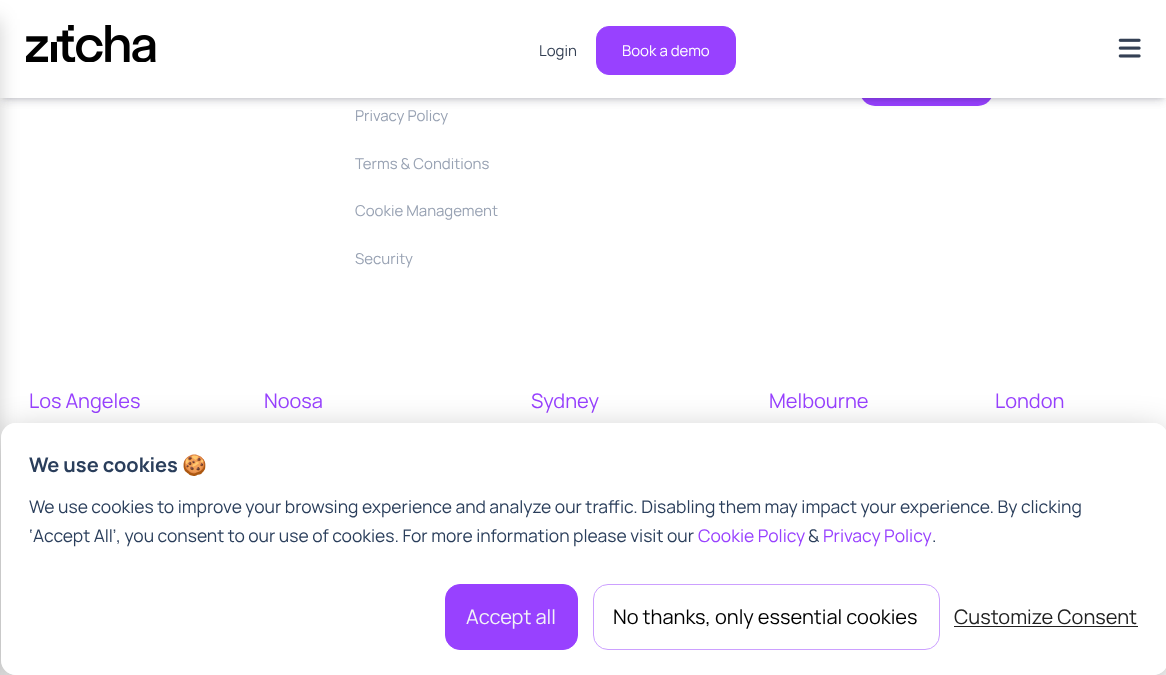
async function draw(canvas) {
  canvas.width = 1166;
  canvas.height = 675;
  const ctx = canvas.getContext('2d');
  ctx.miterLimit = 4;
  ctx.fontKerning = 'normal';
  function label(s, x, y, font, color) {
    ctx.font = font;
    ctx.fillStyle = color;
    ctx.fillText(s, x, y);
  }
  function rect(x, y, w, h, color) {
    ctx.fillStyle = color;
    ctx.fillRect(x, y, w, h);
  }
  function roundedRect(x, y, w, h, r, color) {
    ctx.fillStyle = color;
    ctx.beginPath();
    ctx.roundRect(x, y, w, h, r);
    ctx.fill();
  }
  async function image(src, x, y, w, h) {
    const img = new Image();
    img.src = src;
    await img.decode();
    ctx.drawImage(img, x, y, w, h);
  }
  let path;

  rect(0, 0, 1166, 675, '#fff');
  roundedRect(860, 54, 133, 52, 15, '#9841ff');
  ctx.fillStyle = '#1018281a';
  ctx.filter = 'blur(5px)';
  ctx.beginPath();
  ctx.rect(3, 8, 1161, 92);
  ctx.fill();
  ctx.filter = 'none';
  ctx.fillStyle = '#1018280f';
  ctx.filter = 'blur(2.5px)';
  ctx.beginPath();
  ctx.rect(3, 5, 1161, 93);
  ctx.fill();
  ctx.filter = 'none';
  ctx.fillStyle = '#1018281a';
  ctx.filter = 'blur(5px)';
  ctx.beginPath();
  ctx.rect(3, 8, 1161, 92);
  ctx.fill();
  ctx.filter = 'none';
  ctx.fillStyle = '#1018280f';
  ctx.filter = 'blur(2.5px)';
  ctx.beginPath();
  ctx.rect(3, 5, 1161, 93);
  ctx.fill();
  ctx.filter = 'none';
  rect(0, 0, 1166, 98, '#fff');
  await image('assets/img1.png', 26, 25, 130, 37);
  ctx.fillStyle = '#0000002e';
  ctx.filter = 'blur(9.5px)';
  ctx.beginPath();
  ctx.rect(-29, 19, 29, 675);
  ctx.fill();
  ctx.filter = 'none';
  label('Login', 539, 56, '15px Manrope', '#344054');
  ctx.fillStyle = '#9841ff';
  ctx.beginPath();
  ctx.roundRect(596.5, 26.5, 139, 48, 12.5);
  ctx.fill();
  ctx.strokeStyle = '#9841ff';
  ctx.stroke();
  label('Book a demo', 622, 56, '15px Manrope', '#fff');
  await image('assets/img2.png', 1118, 38, 23, 20);
  label('Privacy Policy', 355, 121, '15px Manrope', '#98a2b3');
  label('Terms & Conditions', 355, 169, '15px Manrope', '#98a2b3');
  label('Cookie Management', 355, 216, '15px Manrope', '#98a2b3');
  label('Security', 355, 264, '15px Manrope', '#98a2b3');
  label('Los Angeles', 29, 408, '20px Manrope', '#9841ff');
  label('Noosa', 264, 408, '20px Manrope', '#9841ff');
  label('Sydney', 531, 408, '20px Manrope', '#9841ff');
  label('Melbourne', 769, 408, '20px Manrope', '#9841ff');
  label('London', 995, 408, '20px Manrope', '#9841ff');
  ctx.save();
  path = new Path2D('M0 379H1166V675H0ZM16 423H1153C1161.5 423 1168 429.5 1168 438V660C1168 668.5 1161.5 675 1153 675H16C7.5 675 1 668.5 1 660V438C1 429.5 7.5 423 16 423Z');
  ctx.clip(path, 'evenodd');
  ctx.fillStyle = '#00000047';
  ctx.filter = 'blur(17.5px)';
  ctx.beginPath();
  ctx.roundRect(1, 433, 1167, 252, 15);
  ctx.fill();
  ctx.filter = 'none';
  ctx.restore();
  roundedRect(1, 423, 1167, 252, 15, '#fff');
  label('We use cookies', 29, 472, 'bold 20px Manrope', '#2a3e5b');
  label('🍪', 182, 472, 'bold 20px Noto Color Emoji', '#2a3e5b');
  label('We use cookies to improve your browsing experience and analyze our traffic. Disabling them may impact your experience. By clicking', 29, 513, '17.5px Manrope', '#2a3e5b');
  label('‘Accept All’, you consent to our use of cookies. For more information please visit our', 29, 542, '17.5px Manrope', '#2a3e5b');
  label('Cookie Policy', 698, 542, '17.5px Manrope', '#9841ff');
  label('&', 808, 542, '17.5px Manrope', '#2a3e5b');
  label('Privacy Policy', 823, 542, '17.5px Manrope', '#9841ff');
  label('.', 932, 542, '17.5px Manrope', '#2a3e5b');
  ctx.fillStyle = '#9841ff';
  ctx.beginPath();
  ctx.roundRect(445.5, 584.5, 132, 65, 14.5);
  ctx.fill();
  ctx.stroke();
  label('Accept all', 466, 624, '20px Manrope', '#f2f4f7');
  ctx.beginPath();
  ctx.roundRect(593.5, 584.5, 346, 65, 14.5);
  ctx.strokeStyle = '#cca0ff';
  ctx.stroke();
  label('No thanks, only essential cookies', 613, 624, '20px Manrope', '#000');
  label('Customize Consent', 954, 624, '20px Manrope', '#212121');
  rect(954, 626, 184, 1, '#212121');
}

draw(document.querySelector('canvas'));
